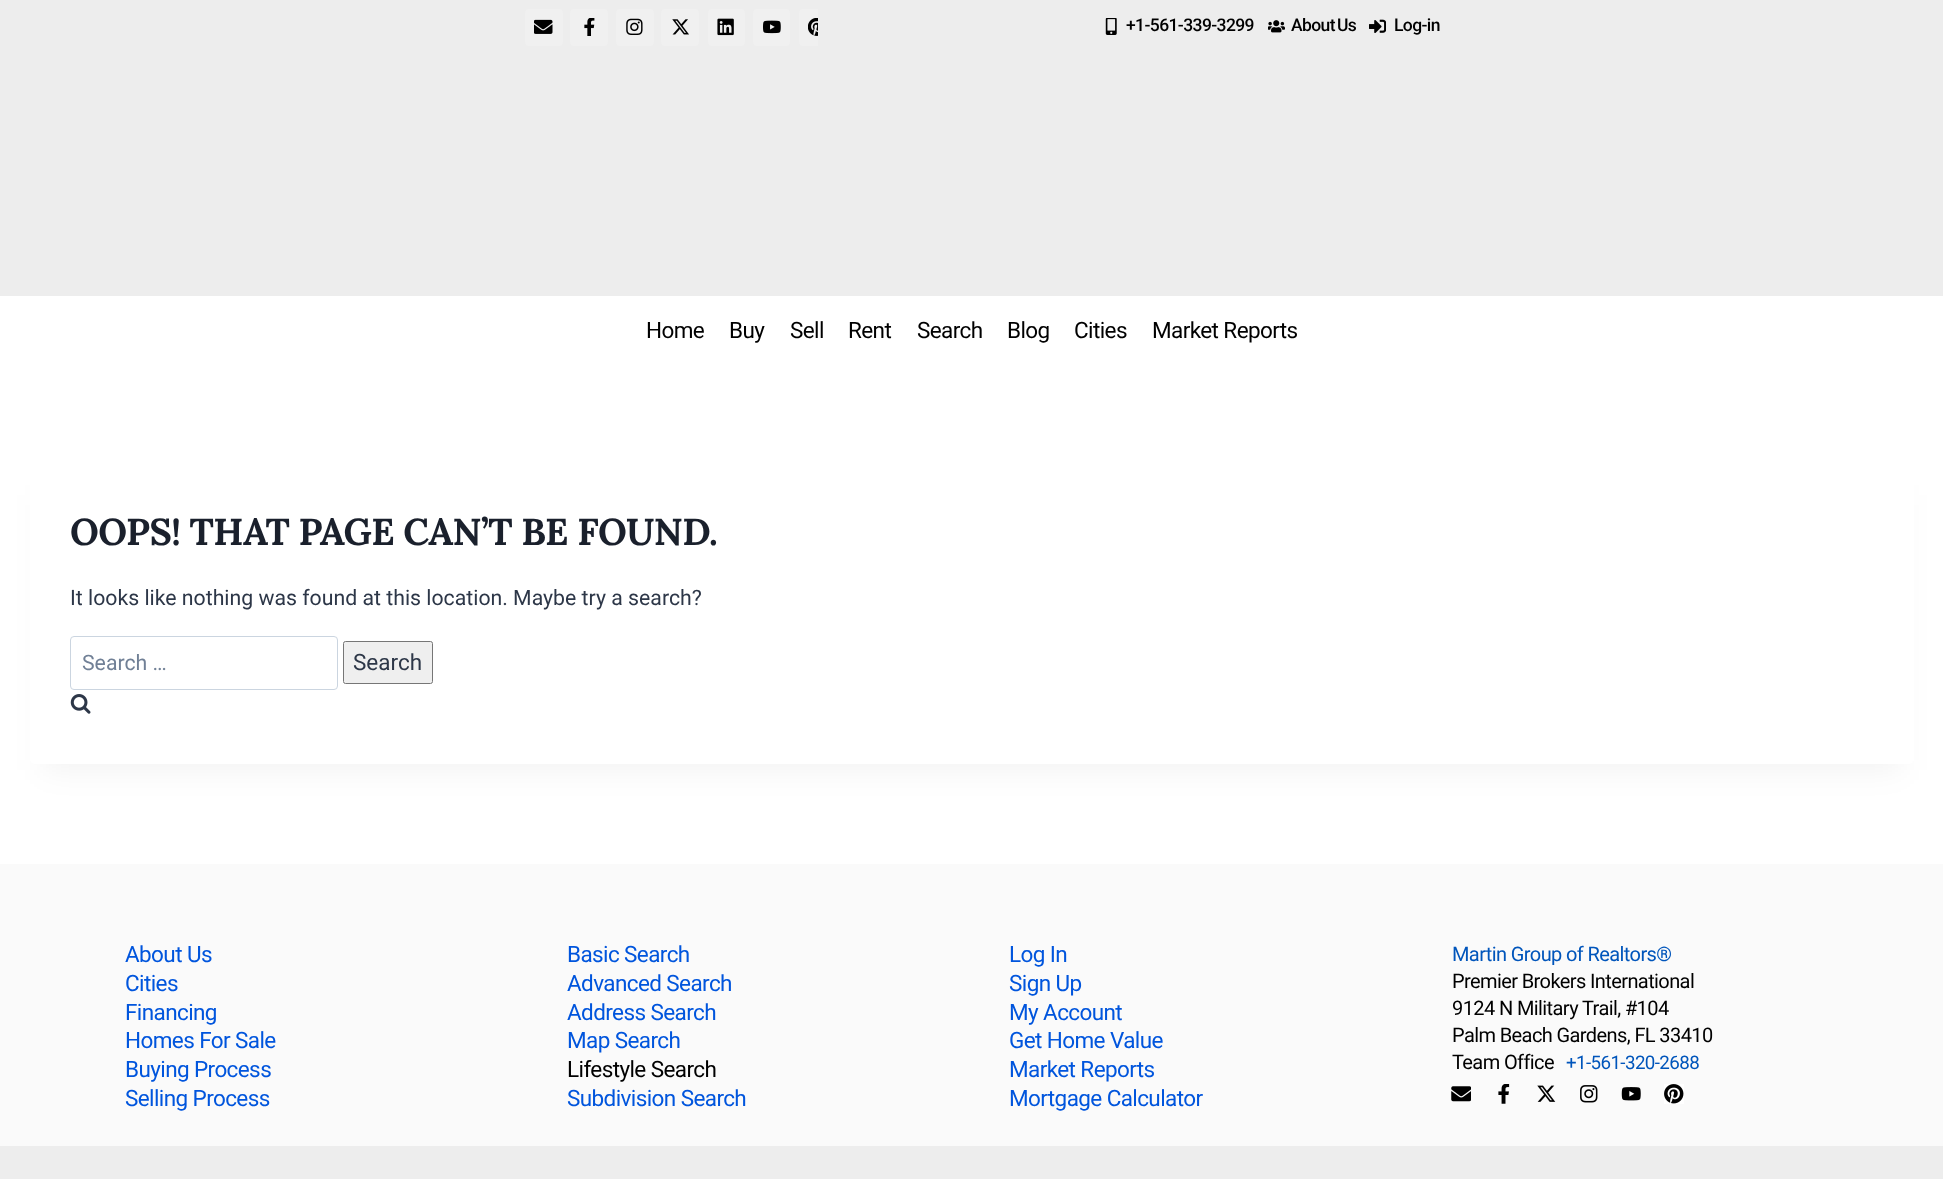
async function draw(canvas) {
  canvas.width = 1943;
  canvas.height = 1179;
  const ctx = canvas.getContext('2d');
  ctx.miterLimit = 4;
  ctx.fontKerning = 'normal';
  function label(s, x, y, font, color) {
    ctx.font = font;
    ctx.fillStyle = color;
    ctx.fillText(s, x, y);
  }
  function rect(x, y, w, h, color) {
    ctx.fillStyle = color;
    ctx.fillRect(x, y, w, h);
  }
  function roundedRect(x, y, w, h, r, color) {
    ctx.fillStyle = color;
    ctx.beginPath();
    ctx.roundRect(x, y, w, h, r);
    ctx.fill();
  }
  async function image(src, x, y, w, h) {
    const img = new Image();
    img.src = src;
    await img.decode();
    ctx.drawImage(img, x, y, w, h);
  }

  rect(0, 0, 1943, 1179, '#fff');
  rect(0, 0, 1943, 296, '#ededed');
  roundedRect(525, 9, 38, 37, 4, '#f0f0f0');
  await image('assets/img1.png', 534, 19, 19, 15);
  roundedRect(570, 9, 38, 37, 4, '#f0f0f0');
  await image('assets/img2.png', 584, 18, 11, 18);
  roundedRect(616, 9, 38, 37, 4, '#f0f0f0');
  await image('assets/img3.png', 626, 18, 17, 17);
  roundedRect(661, 9, 38, 37, 4, '#f0f0f0');
  await image('assets/img4.png', 672, 19, 17, 16);
  roundedRect(708, 9, 37, 37, 4, '#f0f0f0');
  await image('assets/img5.png', 717, 18, 17, 18);
  roundedRect(753, 9, 37, 37, 4, '#f0f0f0');
  await image('assets/img6.png', 763, 20, 18, 14);
  roundedRect(799, 9, 37, 37, 4, '#f0f0f0');
  await image('assets/img7.png', 808, 18, 10, 18);
  rect(818, 9, 18, 37, '#ededed');
  await image('assets/img8.png', 1105, 18, 12, 17);
  ctx.letterSpacing = '-0.6px';
  label('+1-561-339-3299', 1126, 31, '500 17.5px Roboto', '#000');
  await image('assets/img9.png', 1268, 20, 17, 13);
  label('About', 1291, 31, '500 17.5px Roboto', '#000');
  label('Us', 1337, 31, '500 17.5px Roboto', '#000');
  await image('assets/img10.png', 1369, 19, 17, 14);
  label('Log-in', 1394, 31, '500 17.5px Roboto', '#000');
  label('Home', 646, 338, '22.5px Roboto', '#000');
  label('Buy', 729, 338, '22.5px Roboto', '#000');
  label('Sell', 790, 338, '22.5px Roboto', '#000');
  label('Rent', 848, 338, '22.5px Roboto', '#000');
  label('Search', 917, 338, '22.5px Roboto', '#000');
  label('Blog', 1007, 338, '22.5px Roboto', '#000');
  label('Cities', 1074, 338, '22.5px Roboto', '#000');
  label('Market Reports', 1152, 338, '22.5px Roboto', '#000');
  ctx.fillStyle = '#0000000d';
  ctx.filter = 'blur(15.5px)';
  ctx.beginPath();
  ctx.rect(43, 495, 1858, 275);
  ctx.fill();
  ctx.filter = 'none';
  roundedRect(30, 464, 1884, 300, 5, '#fff');
  label('OOPS! THAT PAGE CAN’T BE FOUND.', 70, 545, 'bold 37.5px Lora', '#1a202c');
  ctx.letterSpacing = '0px';
  label('It looks like nothing was found at this location. Maybe try a search?', 70, 605, '21.25px Roboto', '#2d3748');
  ctx.beginPath();
  ctx.roundRect(70.5, 636.5, 267, 53, 3.5);
  ctx.strokeStyle = '#cbd5e0';
  ctx.stroke();
  label('Search …', 82, 670, '21.25px Roboto', '#718096');
  ctx.fillStyle = '#efefef';
  ctx.beginPath();
  ctx.roundRect(343.5, 641.5, 89, 42, 2);
  ctx.fill();
  ctx.strokeStyle = '#767676';
  ctx.stroke();
  label('Search', 353, 670, '22.5px Roboto', '#2d3748');
  await image('assets/img11.png', 70, 694, 21, 20);
  rect(0, 864, 1943, 282, '#fafafa');
  ctx.letterSpacing = '-0.6px';
  label('About Us', 125, 962, '22.5px Roboto', '#05d');
  label('Cities', 125, 991, '22.5px Roboto', '#05d');
  label('Financing', 125, 1020, '22.5px Roboto', '#05d');
  label('Homes For Sale', 125, 1048, '22.5px Roboto', '#05d');
  label('Buying Process', 125, 1077, '22.5px Roboto', '#05d');
  label('Selling Process', 125, 1106, '22.5px Roboto', '#05d');
  label('Basic Search', 567, 962, '22.5px Roboto', '#05d');
  label('Advanced Search', 567, 991, '22.5px Roboto', '#05d');
  label('Address Search', 567, 1020, '22.5px Roboto', '#05d');
  label('Map Search', 567, 1048, '22.5px Roboto', '#05d');
  label('Lifestyle Search', 567, 1077, '22.5px Roboto', '#000');
  label('Subdivision Search', 567, 1106, '22.5px Roboto', '#05d');
  label('Log In', 1009, 962, '22.5px Roboto', '#05d');
  label('Sign Up', 1009, 991, '22.5px Roboto', '#05d');
  label('My Account', 1009, 1020, '22.5px Roboto', '#05d');
  label('Get Home Value', 1009, 1048, '22.5px Roboto', '#05d');
  label('Market Reports', 1009, 1077, '22.5px Roboto', '#05d');
  label('Mortgage Calculator', 1009, 1106, '22.5px Roboto', '#05d');
  label('Martin Group of Realtors®', 1452, 961, '20px Roboto', '#05b');
  label('Premier Brokers International', 1452, 988, '20px Roboto', '#000');
  label('9124 N Military Trail, #104', 1452, 1015, '20px Roboto', '#000');
  label('Palm Beach Gardens, FL 33410', 1452, 1042, '20px Roboto', '#000');
  label('Team Office', 1452, 1069, '20px Roboto', '#000');
  label('+1-561-320-2688', 1566, 1069, '18.75px Roboto', '#05b');
  await image('assets/img12.png', 1451, 1086, 20, 16);
  await image('assets/img13.png', 1498, 1084, 12, 20);
  await image('assets/img14.png', 1537, 1085, 19, 17);
  await image('assets/img15.png', 1580, 1085, 18, 18);
  await image('assets/img16.png', 1621, 1087, 20, 14);
  rect(1664, 1084, 20, 20, '#fff');
  await image('assets/img17.png', 1664, 1084, 20, 20);
  rect(0, 1146, 1943, 33, '#ededed');
}

draw(document.querySelector('canvas'));
